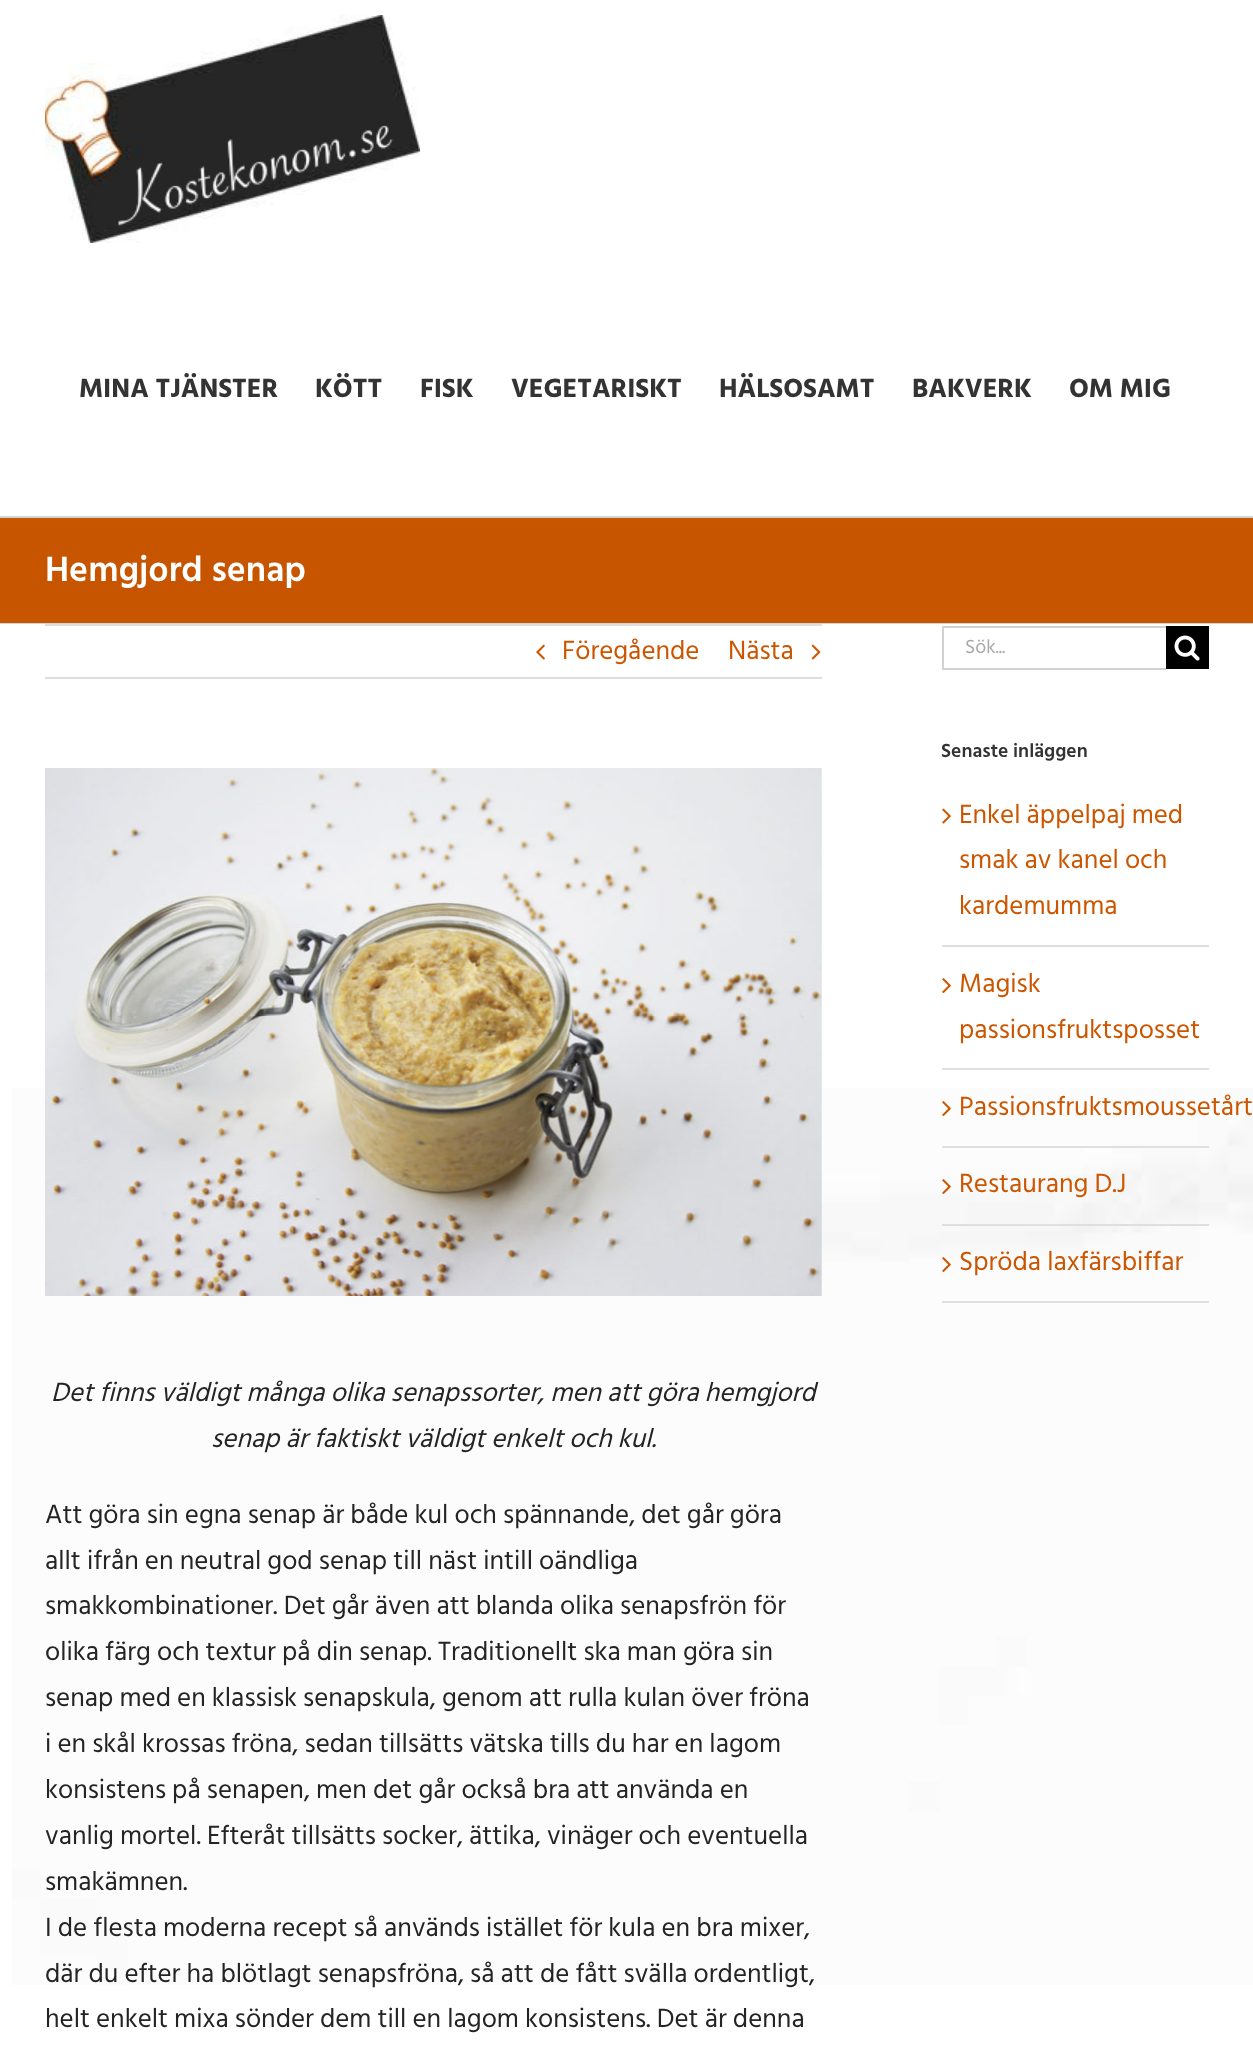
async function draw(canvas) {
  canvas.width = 1253;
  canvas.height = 2055;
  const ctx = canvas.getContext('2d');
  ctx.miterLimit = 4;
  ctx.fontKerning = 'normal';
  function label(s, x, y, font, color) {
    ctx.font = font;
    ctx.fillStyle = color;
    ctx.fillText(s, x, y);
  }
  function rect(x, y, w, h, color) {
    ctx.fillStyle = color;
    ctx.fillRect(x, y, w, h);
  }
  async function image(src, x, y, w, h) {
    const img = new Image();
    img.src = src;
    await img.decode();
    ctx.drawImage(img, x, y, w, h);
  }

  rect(0, 0, 1253, 2055, '#fff');
  await image('assets/img1.png', 45, 15, 375, 228);
  label('MINA TJÄNSTER', 79, 397, 'bold 27px Hind Siliguri', '#333');
  label('KÖTT', 315, 397, 'bold 27px Hind Siliguri', '#333');
  label('FISK', 420, 397, 'bold 27px Hind Siliguri', '#333');
  label('VEGETARISKT', 511, 397, 'bold 27px Hind Siliguri', '#333');
  label('HÄLSOSAMT', 719, 397, 'bold 27px Hind Siliguri', '#333');
  label('BAKVERK', 912, 397, 'bold 27px Hind Siliguri', '#333');
  label('OM MIG', 1069, 397, 'bold 27px Hind Siliguri', '#333');
  rect(0, 518, 1253, 105, '#c75500');
  rect(0, 516, 1253, 2, '#d2d3d4');
  rect(0, 623, 1253, 1, '#d2d3d4');
  label('Hemgjord senap', 45, 581, '600 36px Hind Siliguri', '#fff');
  await image('assets/img2.png', 12, 1088, 1241, 897);
  rect(45, 624, 777, 2, '#e0dede');
  rect(45, 677, 777, 2, '#e0dede');
  await image('assets/img3.png', 536, 644, 9, 16);
  label('Föregående', 562, 659, '27px Hind Siliguri', '#cc5600');
  label('Nästa', 728, 659, '27px Hind Siliguri', '#cc5600');
  await image('assets/img4.png', 811, 644, 10, 16);
  await image('assets/img5.png', 45, 768, 777, 528);
  label('Det finns väldigt många olika senapssorter, men att göra hemgjord', 51, 1401, 'italic 27px Hind Siliguri', '#232423');
  label('senap är faktiskt väldigt enkelt och kul.', 211, 1447, 'italic 27px Hind Siliguri', '#232423');
  label('Att göra sin egna senap är både kul och spännande, det går göra', 45, 1523, '27px Hind Siliguri', '#232423');
  label('allt ifrån en neutral god senap till näst intill oändliga', 45, 1569, '27px Hind Siliguri', '#232423');
  label('smakkombinationer. Det går även att blanda olika senapsfrön för', 45, 1614, '27px Hind Siliguri', '#232423');
  label('olika färg och textur på din senap. Traditionellt ska man göra sin', 45, 1660, '27px Hind Siliguri', '#232423');
  label('senap med en klassisk senapskula, genom att rulla kulan över fröna', 45, 1706, '27px Hind Siliguri', '#232423');
  label('i en skål krossas fröna, sedan tillsätts vätska tills du har en lagom', 45, 1752, '27px Hind Siliguri', '#232423');
  label('konsistens på senapen, men det går också bra att använda en', 45, 1798, '27px Hind Siliguri', '#232423');
  label('vanlig mortel. Efteråt tillsätts socker, ättika, vinäger och eventuella', 45, 1844, '27px Hind Siliguri', '#232423');
  label('smakämnen.', 45, 1890, '27px Hind Siliguri', '#232423');
  label('I de flesta moderna recept så används istället för kula en bra mixer,', 45, 1936, '27px Hind Siliguri', '#232423');
  label('där du efter ha blötlagt senapsfröna, så att de fått svälla ordentligt,', 45, 1982, '27px Hind Siliguri', '#232423');
  label('helt enkelt mixa sönder dem till en lagom konsistens. Det är denna', 45, 2027, '27px Hind Siliguri', '#232423');
  rect(942, 626, 224, 2, '#d2d2d2');
  rect(942, 668, 224, 2, '#d2d2d2');
  rect(942, 626, 2, 43, '#d2d2d2');
  label('Sök...', 965, 653, '19.5px Hind Siliguri', '#aaa9a9');
  rect(1166, 626, 43, 43, '#000');
  await image('assets/img6.png', 1174, 635, 26, 26);
  label('Senaste inläggen', 941, 757, '600 19.5px Hind Siliguri', '#333');
  rect(942, 945, 267, 2, '#e0dede');
  await image('assets/img7.png', 942, 808, 9, 16);
  label('Enkel äppelpaj med', 959, 823, '27px Hind Siliguri', '#cc5600');
  label('smak av kanel och', 959, 868, '27px Hind Siliguri', '#cc5600');
  label('kardemumma', 959, 914, '27px Hind Siliguri', '#cc5600');
  rect(942, 1068, 267, 2, '#e0dede');
  await image('assets/img8.png', 942, 978, 9, 15);
  label('Magisk', 959, 992, '27px Hind Siliguri', '#cc5600');
  label('passionsfruktsposset', 959, 1038, '27px Hind Siliguri', '#cc5600');
  rect(942, 1146, 267, 2, '#e0dede');
  await image('assets/img9.png', 942, 1101, 9, 15);
  label('Passionsfruktsmoussetårt', 959, 1115, '27px Hind Siliguri', '#cc5600');
  rect(942, 1224, 267, 2, '#e0dede');
  await image('assets/img10.png', 942, 1179, 9, 15);
  label('Restaurang D.J', 959, 1192, '27px Hind Siliguri', '#cc5600');
  rect(942, 1301, 267, 2, '#e0dede');
  await image('assets/img11.png', 942, 1257, 9, 15);
  label('Spröda laxfärsbiffar', 959, 1270, '27px Hind Siliguri', '#cc5600');
}

draw(document.querySelector('canvas'));
